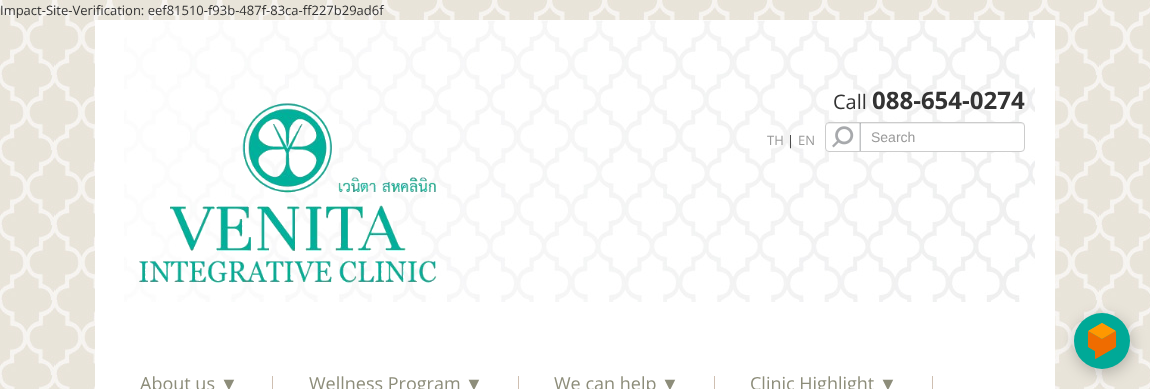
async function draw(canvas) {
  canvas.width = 1150;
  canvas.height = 389;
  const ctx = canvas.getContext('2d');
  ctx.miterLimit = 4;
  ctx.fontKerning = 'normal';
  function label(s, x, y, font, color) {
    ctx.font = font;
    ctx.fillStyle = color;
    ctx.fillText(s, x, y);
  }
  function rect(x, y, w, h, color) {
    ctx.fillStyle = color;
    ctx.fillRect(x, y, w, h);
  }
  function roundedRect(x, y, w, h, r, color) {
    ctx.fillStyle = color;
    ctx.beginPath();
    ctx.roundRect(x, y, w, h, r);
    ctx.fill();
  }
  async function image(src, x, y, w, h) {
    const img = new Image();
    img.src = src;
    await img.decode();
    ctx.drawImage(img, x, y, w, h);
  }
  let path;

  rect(0, 0, 1150, 389, '#fff');
  await image('assets/img1.png', 0, 0, 1150, 389);
  label('Impact-Site-Verification: eef81510-f93b-487f-83ca-ff227b29ad6f', 0, 15, '13px Open Sans', '#333');
  rect(95, 20, 960, 369, '#fff');
  await image('assets/img2.png', 124, 20, 911, 282);
  await image('assets/img3.png', 139, 103, 298, 180);
  label('Call', 833, 109, '20px Open Sans', '#333');
  label('088-654-0274', 872, 109, 'bold 24px Open Sans', '#333');
  label('TH', 767, 145, '13px Open Sans', '#999');
  label('|', 787, 145, '13px Open Sans', '#333');
  label('EN', 798, 145, '13px Open Sans', '#999');
  roundedRect(825, 122, 200, 30, 4, '#fff');
  await image('assets/img4.png', 832, 123, 29, 28);
  ctx.fillStyle = '#00000012';
  path = new Path2D('M829 124H1021C1023 124 1024 125 1024 127C1024 125 1023 123 1021 123H829C827 123 826 125 826 127C826 125 827 124 829 124Z');
  ctx.fill(path);
  ctx.beginPath();
  ctx.roundRect(825.5, 122.5, 199, 29, 3.5);
  ctx.strokeStyle = '#ccc';
  ctx.stroke();
  label('Search', 871, 142, '14px Liberation Sans', '#999');
  label('About us', 140, 390, '18px Open Sans', '#8d8d7a');
  label('▼', 220, 390, '18px Liberation Sans', '#8d8d7a');
  label('|', 269, 386, '13px Open Sans', '#c9b7a7');
  label('Wellness Program', 309, 390, '18px Open Sans', '#8d8d7a');
  label('▼', 465, 390, '18px Liberation Sans', '#8d8d7a');
  label('|', 515, 386, '13px Open Sans', '#c9b7a7');
  label('We can help', 554, 390, '18px Open Sans', '#8d8d7a');
  label('▼', 661, 390, '18px Liberation Sans', '#8d8d7a');
  label('|', 711, 386, '13px Open Sans', '#c9b7a7');
  label('Clinic Highlight', 750, 390, '18px Open Sans', '#8d8d7a');
  label('▼', 879, 390, '18px Liberation Sans', '#8d8d7a');
  label('|', 929, 386, '13px Open Sans', '#c9b7a7');
  ctx.fillStyle = '#0000003d';
  ctx.filter = 'blur(7.5px)';
  ctx.beginPath();
  ctx.roundRect(1075, 317, 56, 56, 28);
  ctx.fill();
  ctx.filter = 'none';
  ctx.fillStyle = '#00a997';
  ctx.beginPath();
  ctx.arc(1102, 341, 28, 0, 2 * Math.PI);
  ctx.fill();
  await image('assets/img5.png', 1087, 323, 30, 36);
}

draw(document.querySelector('canvas'));
